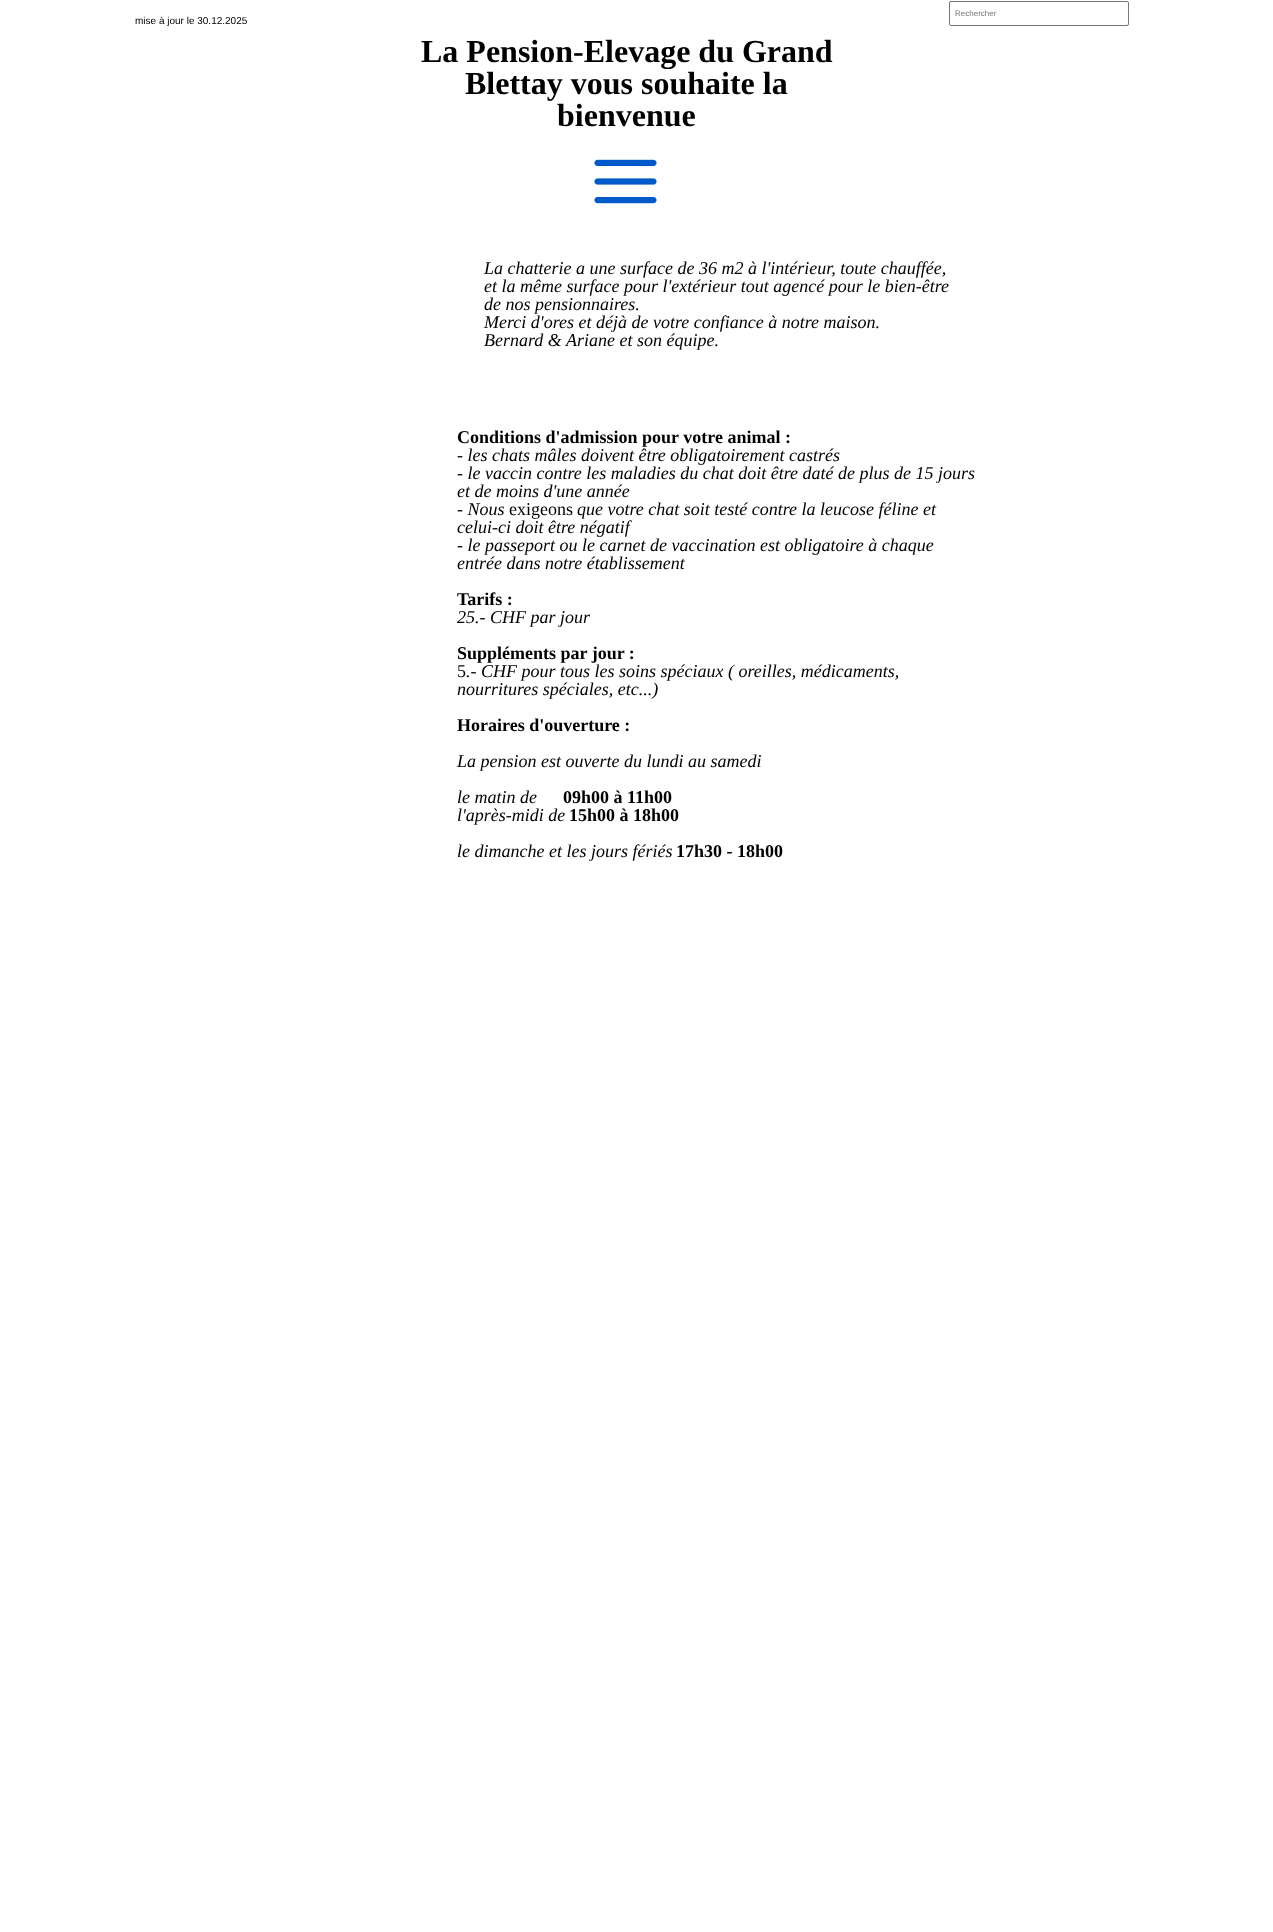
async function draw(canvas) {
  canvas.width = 1273;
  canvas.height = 1932;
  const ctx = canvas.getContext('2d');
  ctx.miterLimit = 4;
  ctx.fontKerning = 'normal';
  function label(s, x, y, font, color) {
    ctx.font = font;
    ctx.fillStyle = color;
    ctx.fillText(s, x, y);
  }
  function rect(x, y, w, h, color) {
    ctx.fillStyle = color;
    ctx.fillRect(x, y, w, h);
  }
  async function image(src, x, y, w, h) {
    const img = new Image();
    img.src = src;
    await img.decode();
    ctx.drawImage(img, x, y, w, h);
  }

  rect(0, 0, 1273, 1932, '#fff');
  ctx.beginPath();
  ctx.roundRect(949.5, 1.5, 179, 24, 1.5);
  ctx.strokeStyle = '#767676';
  ctx.stroke();
  label('Rechercher', 955, 16, '8px Liberation Sans', '#757575');
  label('mise à jour le 30.12.2025', 135, 24, '10px Liberation Sans', '#000');
  label('La Pension-Elevage du Grand', 421, 62, 'bold 32px Liberation Serif', '#000');
  label('Blettay vous souhaite la', 465, 94, 'bold 32px Liberation Serif', '#000');
  label('bienvenue', 557, 126, 'bold 32px Liberation Serif', '#000');
  await image('assets/img1.png', 594, 159, 63, 45);
  label('La chatterie a une surface de 36 m2 à l\'intérieur, toute chauffée,', 484, 274, 'italic 18px Liberation Serif', '#000');
  label('et la même surface pour l\'extérieur tout agencé pour le bien-être', 484, 292, 'italic 18px Liberation Serif', '#000');
  label('de nos pensionnaires.', 484, 310, 'italic 18px Liberation Serif', '#000');
  label('Merci d\'ores et déjà de votre confiance à notre maison.', 484, 328, 'italic 18px Liberation Serif', '#000');
  label('Bernard & Ariane et son équipe.', 484, 346, 'italic 18px Liberation Serif', '#000');
  label('Conditions d\'admission pour votre animal :', 457, 443, 'bold 18px Liberation Serif', '#000');
  label('- les chats mâles doivent être obligatoirement castrés', 457, 461, 'italic 18px Liberation Serif', '#000');
  label('- le vaccin contre les maladies du chat doit être daté de plus de 15 jours', 457, 479, 'italic 18px Liberation Serif', '#000');
  label('et de moins d\'une année', 457, 497, 'italic 18px Liberation Serif', '#000');
  label('- Nous', 457, 515, 'italic 18px Liberation Serif', '#000');
  label('exigeons', 509, 515, '18px Liberation Serif', '#000');
  label('que votre chat soit testé contre la leucose féline et', 577, 515, 'italic 18px Liberation Serif', '#000');
  label('celui-ci doit être négatif', 457, 533, 'italic 18px Liberation Serif', '#000');
  label('- le passeport ou le carnet de vaccination est obligatoire à chaque', 457, 551, 'italic 18px Liberation Serif', '#000');
  label('entrée dans notre établissement', 457, 569, 'italic 18px Liberation Serif', '#000');
  label('Tarifs :', 457, 605, 'bold 18px Liberation Serif', '#000');
  label('25.- CHF par jour', 457, 623, 'italic 18px Liberation Serif', '#000');
  label('Suppléments par jour :', 457, 659, 'bold 18px Liberation Serif', '#000');
  label('5', 457, 677, '18px Liberation Serif', '#000');
  label('.- CHF pour tous les soins spéciaux ( oreilles, médicaments,', 466, 677, 'italic 18px Liberation Serif', '#000');
  label('nourritures spéciales, etc...)', 457, 695, 'italic 18px Liberation Serif', '#000');
  label('Horaires d\'ouverture :', 457, 731, 'bold 18px Liberation Serif', '#000');
  label('La pension est ouverte du lundi au samedi', 457, 767, 'italic 18px Liberation Serif', '#000');
  label('le matin de', 457, 803, 'italic 18px Liberation Serif', '#000');
  label('09h00 à 11h00', 563, 803, 'bold 18px Liberation Serif', '#000');
  label('l\'après-midi de', 457, 821, 'italic 18px Liberation Serif', '#000');
  label('15h00 à 18h00', 569, 821, 'bold 18px Liberation Serif', '#000');
  label('le dimanche et les jours fériés', 457, 857, 'italic 18px Liberation Serif', '#000');
  label('17h30 - 18h00', 676, 857, 'bold 18px Liberation Serif', '#000');
}

draw(document.querySelector('canvas'));
